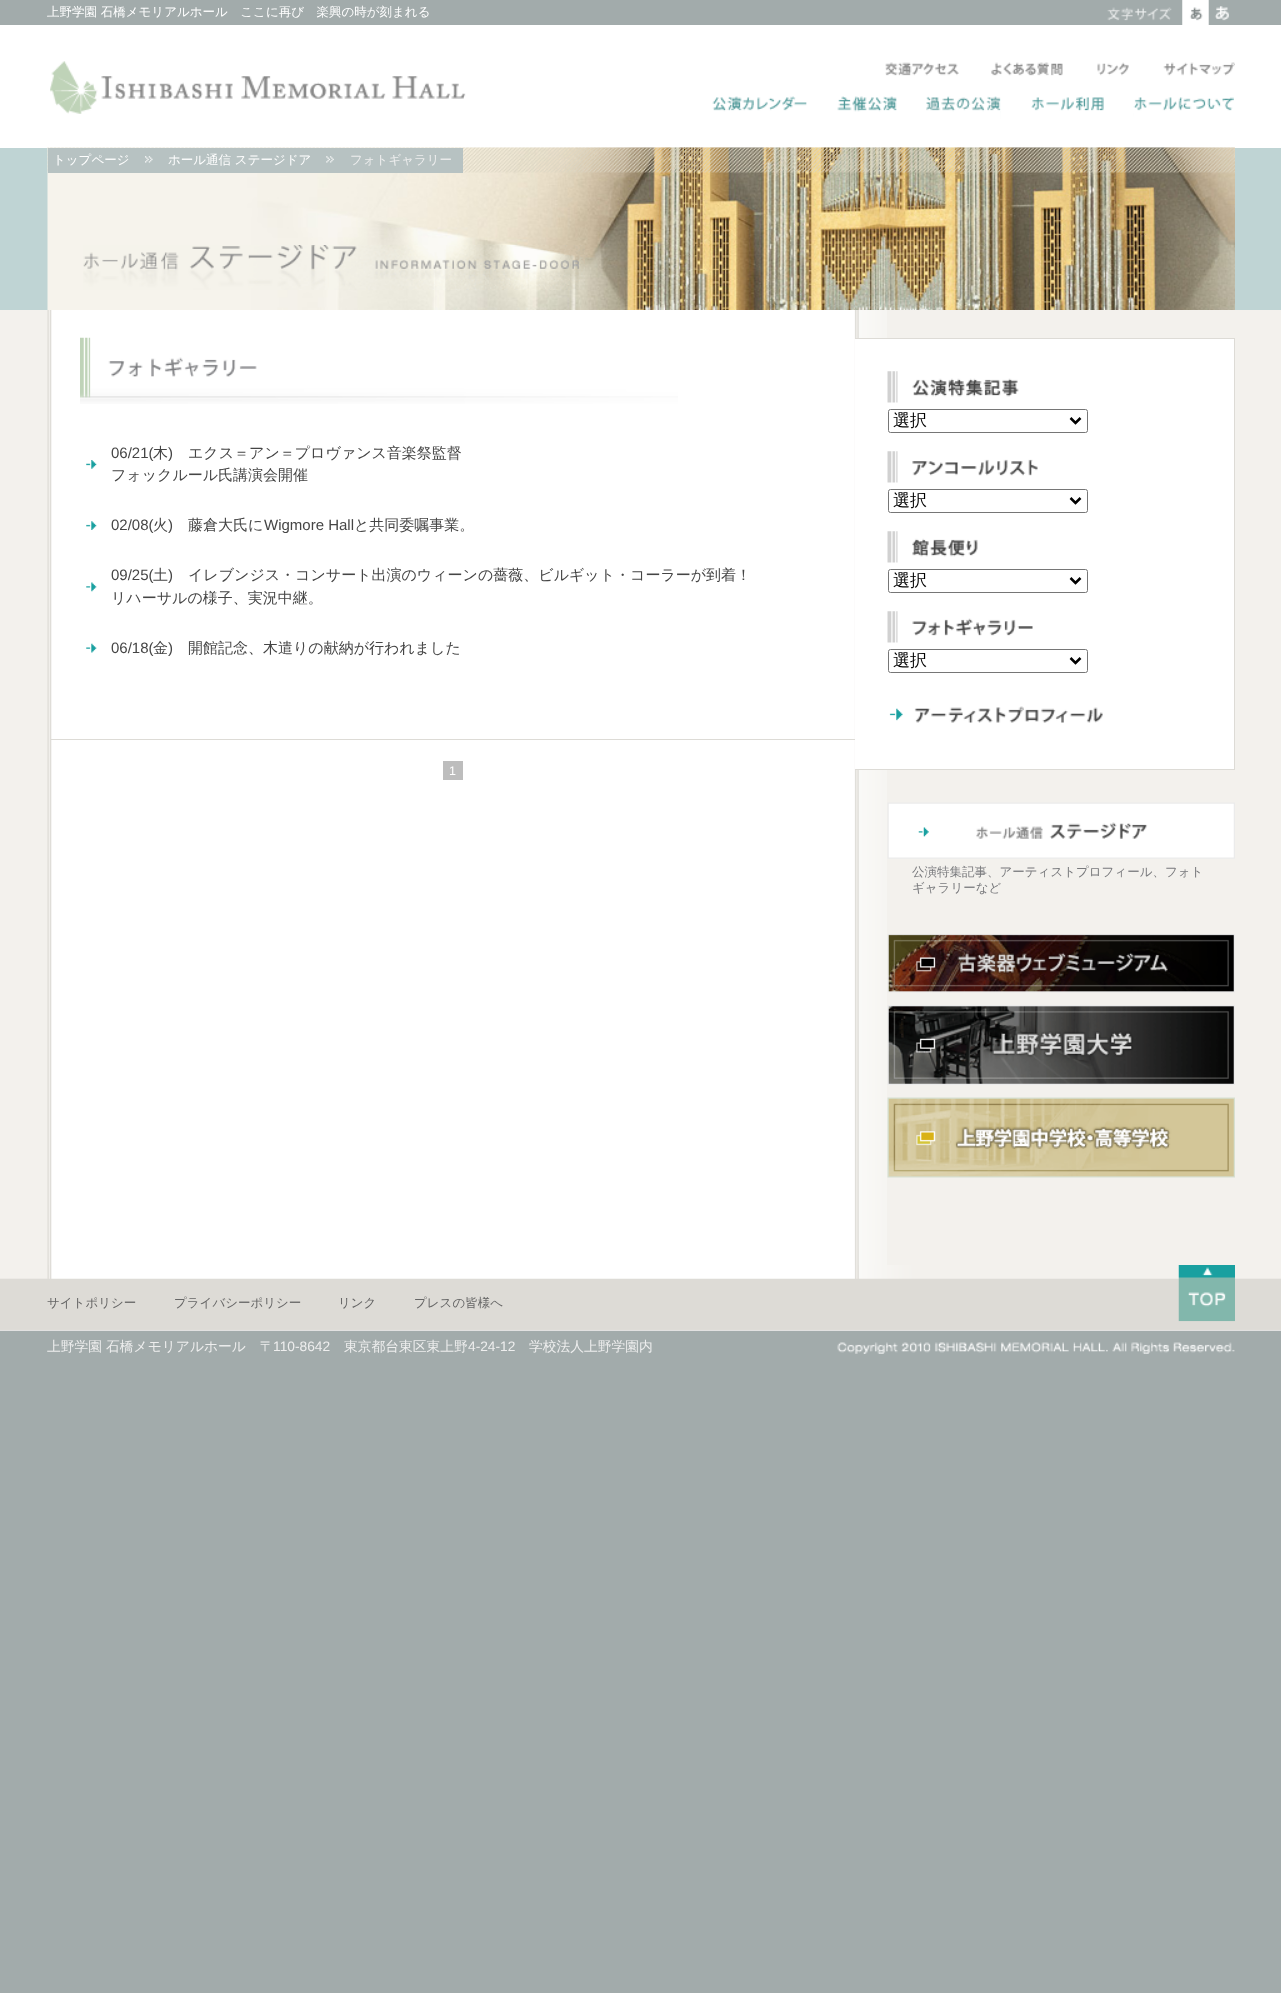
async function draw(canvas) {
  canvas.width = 1281;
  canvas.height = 1993;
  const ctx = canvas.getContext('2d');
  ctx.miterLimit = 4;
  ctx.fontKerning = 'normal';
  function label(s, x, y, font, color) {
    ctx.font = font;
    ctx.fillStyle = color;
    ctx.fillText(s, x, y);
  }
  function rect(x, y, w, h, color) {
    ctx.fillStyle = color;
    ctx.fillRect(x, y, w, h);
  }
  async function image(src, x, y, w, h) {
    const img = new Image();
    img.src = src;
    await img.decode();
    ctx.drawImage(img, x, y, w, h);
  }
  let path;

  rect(0, 0, 1281, 1993, '#a2abab');
  label('上野学園 石橋メモリアルホール　ここに再び　楽興の時が刻まれる', 47, 16, '500 12.5px WenQuanYi Zen Hei', '#fff');
  await image('assets/img1.png', 1107, 7, 65, 14);
  await image('assets/img2.png', 1182, 0, 27, 25);
  await image('assets/img4.png', 1208, 0, 1, 25);
  await image('assets/img3.png', 1182, 0, 27, 25);
  await image('assets/img5.png', 1208, 0, 27, 25);
  rect(0, 25, 1281, 123, '#fff');
  await image('assets/img6.png', 50, 61, 416, 53);
  await image('assets/img7.png', 885, 62, 74, 23);
  await image('assets/img8.png', 991, 62, 72, 23);
  await image('assets/img9.png', 1097, 62, 32, 19);
  await image('assets/img10.png', 1163, 62, 72, 23);
  await image('assets/img11.png', 712, 96, 95, 23);
  await image('assets/img12.png', 837, 96, 60, 24);
  await image('assets/img13.png', 926, 96, 75, 23);
  await image('assets/img14.png', 926, 97, 74, 22);
  await image('assets/img15.png', 1031, 96, 73, 1);
  await image('assets/img16.png', 1031, 97, 73, 23);
  await image('assets/img17.png', 1133, 97, 101, 22);
  await image('assets/img18.png', 1134, 97, 100, 22);
  rect(0, 148, 1281, 162, '#bfd4d4');
  await image('assets/img19.png', 47, 147, 1188, 163);
  await image('assets/img20.png', 47, 147, 1188, 26);
  rect(48, 148, 415, 25, '#b7c2c2');
  label('トップページ', 53, 164, '500 12.5px WenQuanYi Zen Hei', '#fff');
  await image('assets/img21.png', 145, 156, 8, 7);
  label('ホール通信 ステージドア', 168, 164, '500 12.5px WenQuanYi Zen Hei', '#fff');
  await image('assets/img22.png', 326, 156, 8, 7);
  label('フォトギャラリー', 350, 164, '500 12.5px WenQuanYi Zen Hei', '#eee');
  await image('assets/img23.png', 83, 245, 502, 45);
  rect(0, 310, 1281, 968, '#f3f1ed');
  await image('assets/img24.png', 47, 310, 840, 955);
  await image('assets/img25.png', 80, 337, 598, 67);
  await image('assets/img26.png', 86, 460, 11, 9);
  label('06/21(', 111, 458, '15px Liberation Sans', '#454545');
  label('木', 153, 458, '500 15px WenQuanYi Zen Hei', '#454545');
  label(')', 168, 458, '15px Liberation Sans', '#454545');
  label('エクス＝アン＝プロヴァンス音楽祭監督', 188, 458, '500 15px WenQuanYi Zen Hei', '#454545');
  label('フォックルール氏講演会開催', 111, 480, '500 15px WenQuanYi Zen Hei', '#454545');
  await image('assets/img27.png', 86, 521, 11, 9);
  label('02/08(', 111, 530, '15px Liberation Sans', '#454545');
  label('火', 153, 530, '500 15px WenQuanYi Zen Hei', '#454545');
  label(')', 168, 530, '15px Liberation Sans', '#454545');
  label('藤倉大氏に', 188, 530, '500 15px WenQuanYi Zen Hei', '#454545');
  label('Wigmore Hall', 264, 530, '15px Liberation Sans', '#454545');
  label('と共同委嘱事業。', 354, 530, '500 15px WenQuanYi Zen Hei', '#454545');
  await image('assets/img28.png', 86, 582, 11, 10);
  label('09/25(', 111, 580, '15px Liberation Sans', '#454545');
  label('土', 153, 580, '500 15px WenQuanYi Zen Hei', '#454545');
  label(')', 168, 580, '15px Liberation Sans', '#454545');
  label('イレブンジス・コンサート出演のウィーンの薔薇、ビルギット・コーラーが到着！', 188, 580, '500 15px WenQuanYi Zen Hei', '#454545');
  label('リハーサルの様子、実況中継。', 111, 603, '500 15px WenQuanYi Zen Hei', '#454545');
  await image('assets/img29.png', 86, 643, 11, 10);
  label('06/18(', 111, 653, '15px Liberation Sans', '#454545');
  label('金', 153, 653, '500 15px WenQuanYi Zen Hei', '#454545');
  label(')', 168, 653, '15px Liberation Sans', '#454545');
  label('開館記念、木遣りの献納が行われました', 188, 653, '500 15px WenQuanYi Zen Hei', '#454545');
  rect(51, 739, 804, 1, '#dddbd6');
  rect(443, 761, 20, 19, '#bdbdbd');
  label('1', 449, 775, '12.5px Liberation Sans', '#fff');
  rect(855, 339, 379, 430, '#fff');
  rect(855, 338, 380, 1, '#dddbd6');
  rect(1234, 338, 1, 432, '#dddbd6');
  rect(855, 769, 380, 1, '#dddbd6');
  await image('assets/img30.png', 887, 371, 132, 32);
  ctx.beginPath();
  ctx.roundRect(888.5, 409.5, 199, 23, 2);
  ctx.strokeStyle = '#767676';
  ctx.stroke();
  path = new Path2D('M1070.5 418L1075.5 423L1080.5 418');
  ctx.strokeStyle = '#000';
  ctx.lineWidth = 2.5;
  ctx.stroke(path);
  label('選択', 893, 426, '500 17px WenQuanYi Zen Hei', '#000');
  await image('assets/img31.png', 887, 451, 151, 32);
  ctx.beginPath();
  ctx.roundRect(888.5, 489.5, 199, 23, 2);
  ctx.strokeStyle = '#767676';
  ctx.lineWidth = 1;
  ctx.stroke();
  path = new Path2D('M1070.5 498L1075.5 503L1080.5 498');
  ctx.strokeStyle = '#000';
  ctx.lineWidth = 2.5;
  ctx.stroke(path);
  label('選択', 893, 506, '500 17px WenQuanYi Zen Hei', '#000');
  await image('assets/img32.png', 887, 531, 91, 32);
  ctx.beginPath();
  ctx.roundRect(888.5, 569.5, 199, 23, 2);
  ctx.strokeStyle = '#767676';
  ctx.lineWidth = 1;
  ctx.stroke();
  path = new Path2D('M1070.5 578L1075.5 583L1080.5 578');
  ctx.strokeStyle = '#000';
  ctx.lineWidth = 2.5;
  ctx.stroke(path);
  label('選択', 893, 586, '500 17px WenQuanYi Zen Hei', '#000');
  await image('assets/img33.png', 887, 611, 146, 32);
  ctx.beginPath();
  ctx.roundRect(888.5, 649.5, 199, 23, 2);
  ctx.strokeStyle = '#767676';
  ctx.lineWidth = 1;
  ctx.stroke();
  path = new Path2D('M1070.5 658L1075.5 663L1080.5 658');
  ctx.strokeStyle = '#000';
  ctx.lineWidth = 2.5;
  ctx.stroke(path);
  label('選択', 893, 666, '500 17px WenQuanYi Zen Hei', '#000');
  await image('assets/img34.png', 889, 706, 214, 17);
  await image('assets/img35.png', 887, 802, 348, 57);
  await image('assets/img36.png', 888, 803, 346, 55);
  label('公演特集記事、アーティストプロフィール、フォト', 912, 876, '500 12.5px WenQuanYi Zen Hei', '#797a7d');
  label('ギャラリーなど', 912, 892, '500 12.5px WenQuanYi Zen Hei', '#797a7d');
  await image('assets/img37.png', 887, 934, 348, 59);
  await image('assets/img38.png', 887, 1005, 348, 80);
  await image('assets/img39.png', 887, 1097, 348, 81);
  await image('assets/img40.png', 0, 1278, 1281, 53);
  await image('assets/img41.png', 47, 1265, 1132, 15);
  label('サイトポリシー', 47, 1307, '500 12.5px WenQuanYi Zen Hei', '#666');
  label('プライバシーポリシー', 174, 1307, '500 12.5px WenQuanYi Zen Hei', '#666');
  label('リンク', 338, 1307, '500 12.5px WenQuanYi Zen Hei', '#666');
  label('プレスの皆様へ', 414, 1307, '500 12.5px WenQuanYi Zen Hei', '#666');
  await image('assets/img42.png', 1178, 1265, 57, 57);
  label('上野学園 石橋メモリアルホール　〒', 47, 1351, '500 13.75px WenQuanYi Zen Hei', '#eee');
  label('110-8642', 273, 1351, '13.75px Liberation Sans', '#eee');
  label('東京都台東区東上野', 344, 1351, '500 13.75px WenQuanYi Zen Hei', '#eee');
  label('4-24-12', 468, 1351, '13.75px Liberation Sans', '#eee');
  label('学校法人上野学園内', 529, 1351, '500 13.75px WenQuanYi Zen Hei', '#eee');
  await image('assets/img43.png', 837, 1342, 398, 12);
}

draw(document.querySelector('canvas'));
